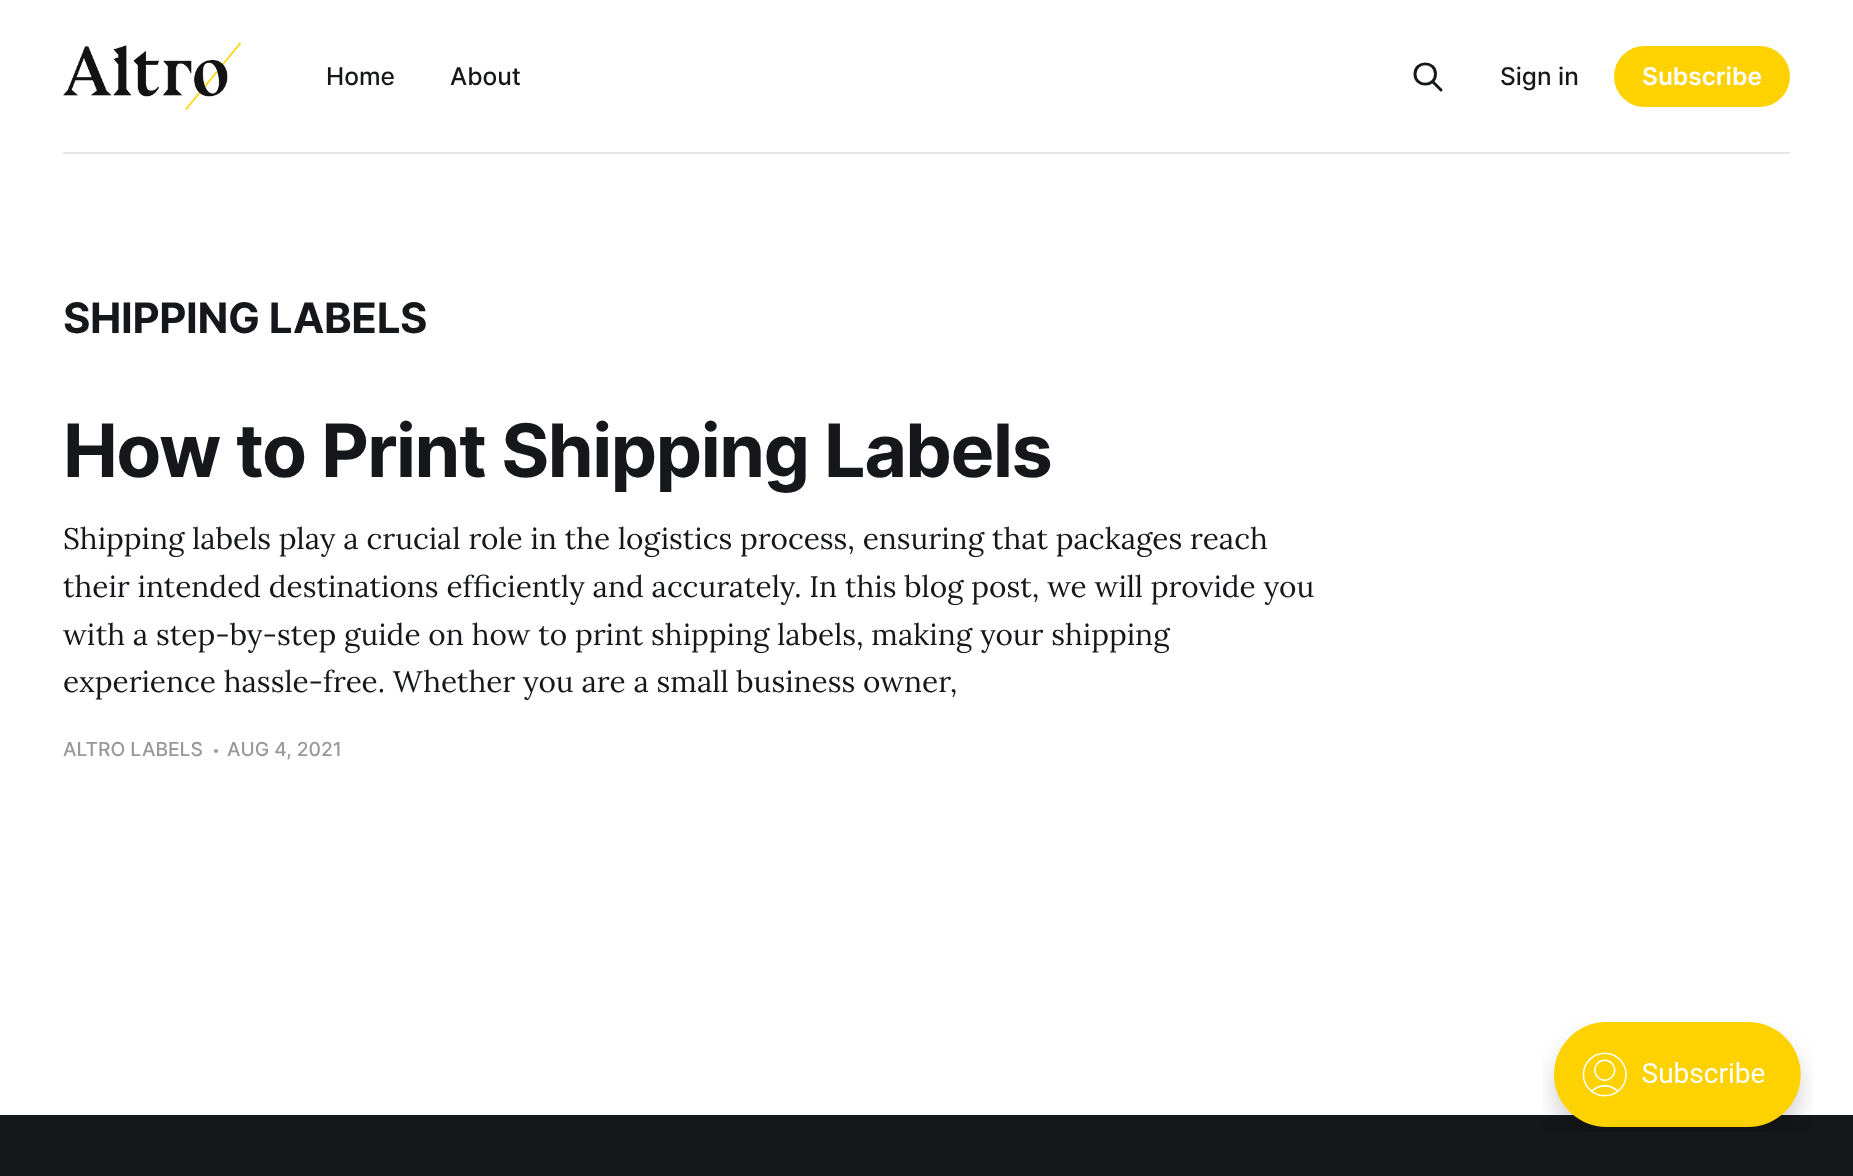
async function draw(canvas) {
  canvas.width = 1853;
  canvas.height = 1176;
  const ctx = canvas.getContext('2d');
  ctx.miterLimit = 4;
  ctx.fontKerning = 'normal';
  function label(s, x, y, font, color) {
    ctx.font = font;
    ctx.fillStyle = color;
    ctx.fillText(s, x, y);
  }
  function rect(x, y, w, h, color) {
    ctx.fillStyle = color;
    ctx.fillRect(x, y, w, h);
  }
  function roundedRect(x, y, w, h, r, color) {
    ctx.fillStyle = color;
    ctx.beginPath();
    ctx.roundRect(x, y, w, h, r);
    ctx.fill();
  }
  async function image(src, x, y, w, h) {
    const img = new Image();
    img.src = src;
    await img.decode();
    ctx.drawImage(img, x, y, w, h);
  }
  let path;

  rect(0, 0, 1853, 1176, '#fff');
  rect(63, 152, 1727, 2, '#e6e6e6');
  await image('assets/img1.png', 63, 42, 179, 69);
  label('Home', 326, 85, '500 24.5px Inter', '#15171a');
  label('About', 450, 85, '500 24.5px Inter', '#15171a');
  path = new Path2D('M1441 90L1432.5 81.5M1435.5 74C1435.5 87.5 1415 87.5 1415 74C1415 60.5 1435.5 60.5 1435.5 74Z');
  ctx.strokeStyle = '#15171a';
  ctx.lineWidth = 2.9;
  ctx.lineCap = 'round';
  ctx.lineJoin = 'round';
  ctx.stroke(path);
  label('Sign in', 1500, 85, '500 24.5px Inter', '#15171a');
  roundedRect(1614, 46, 176, 61, 30.5, '#fed200');
  label('Subscribe', 1642, 85, '600 24.5px Inter', '#fff');
  ctx.letterSpacing = '-0.4px';
  label('SHIPPING LABELS', 63, 333, 'bold 42px Inter', '#15171a');
  ctx.letterSpacing = '-1.5px';
  label('How to Print Shipping Labels', 63, 477, 'bold 73.5px Inter', '#15171a');
  ctx.letterSpacing = '0px';
  label('Shipping labels play a crucial role in the logistics process, ensuring that packages reach', 63, 549, '29.75px Lora', '#15171a');
  label('their intended destinations efficiently and accurately. In this blog post, we will provide you', 63, 597, '29.75px Lora', '#15171a');
  label('with a step-by-step guide on how to print shipping labels, making your shipping', 63, 645, '29.75px Lora', '#15171a');
  label('experience hassle-free. Whether you are a small business owner,', 63, 692, '29.75px Lora', '#15171a');
  label('ALTRO LABELS', 63, 756, '500 19.25px Inter', '#999');
  ctx.beginPath();
  ctx.arc(216, 751, 2, 0, 2 * Math.PI);
  ctx.fill();
  label('AUG 4, 2021', 227, 756, '500 19.25px Inter', '#999');
  rect(0, 1115, 1853, 61, '#15171a');
  await image('assets/img2.png', 1542, 1022, 271, 110);
}

draw(document.querySelector('canvas'));
